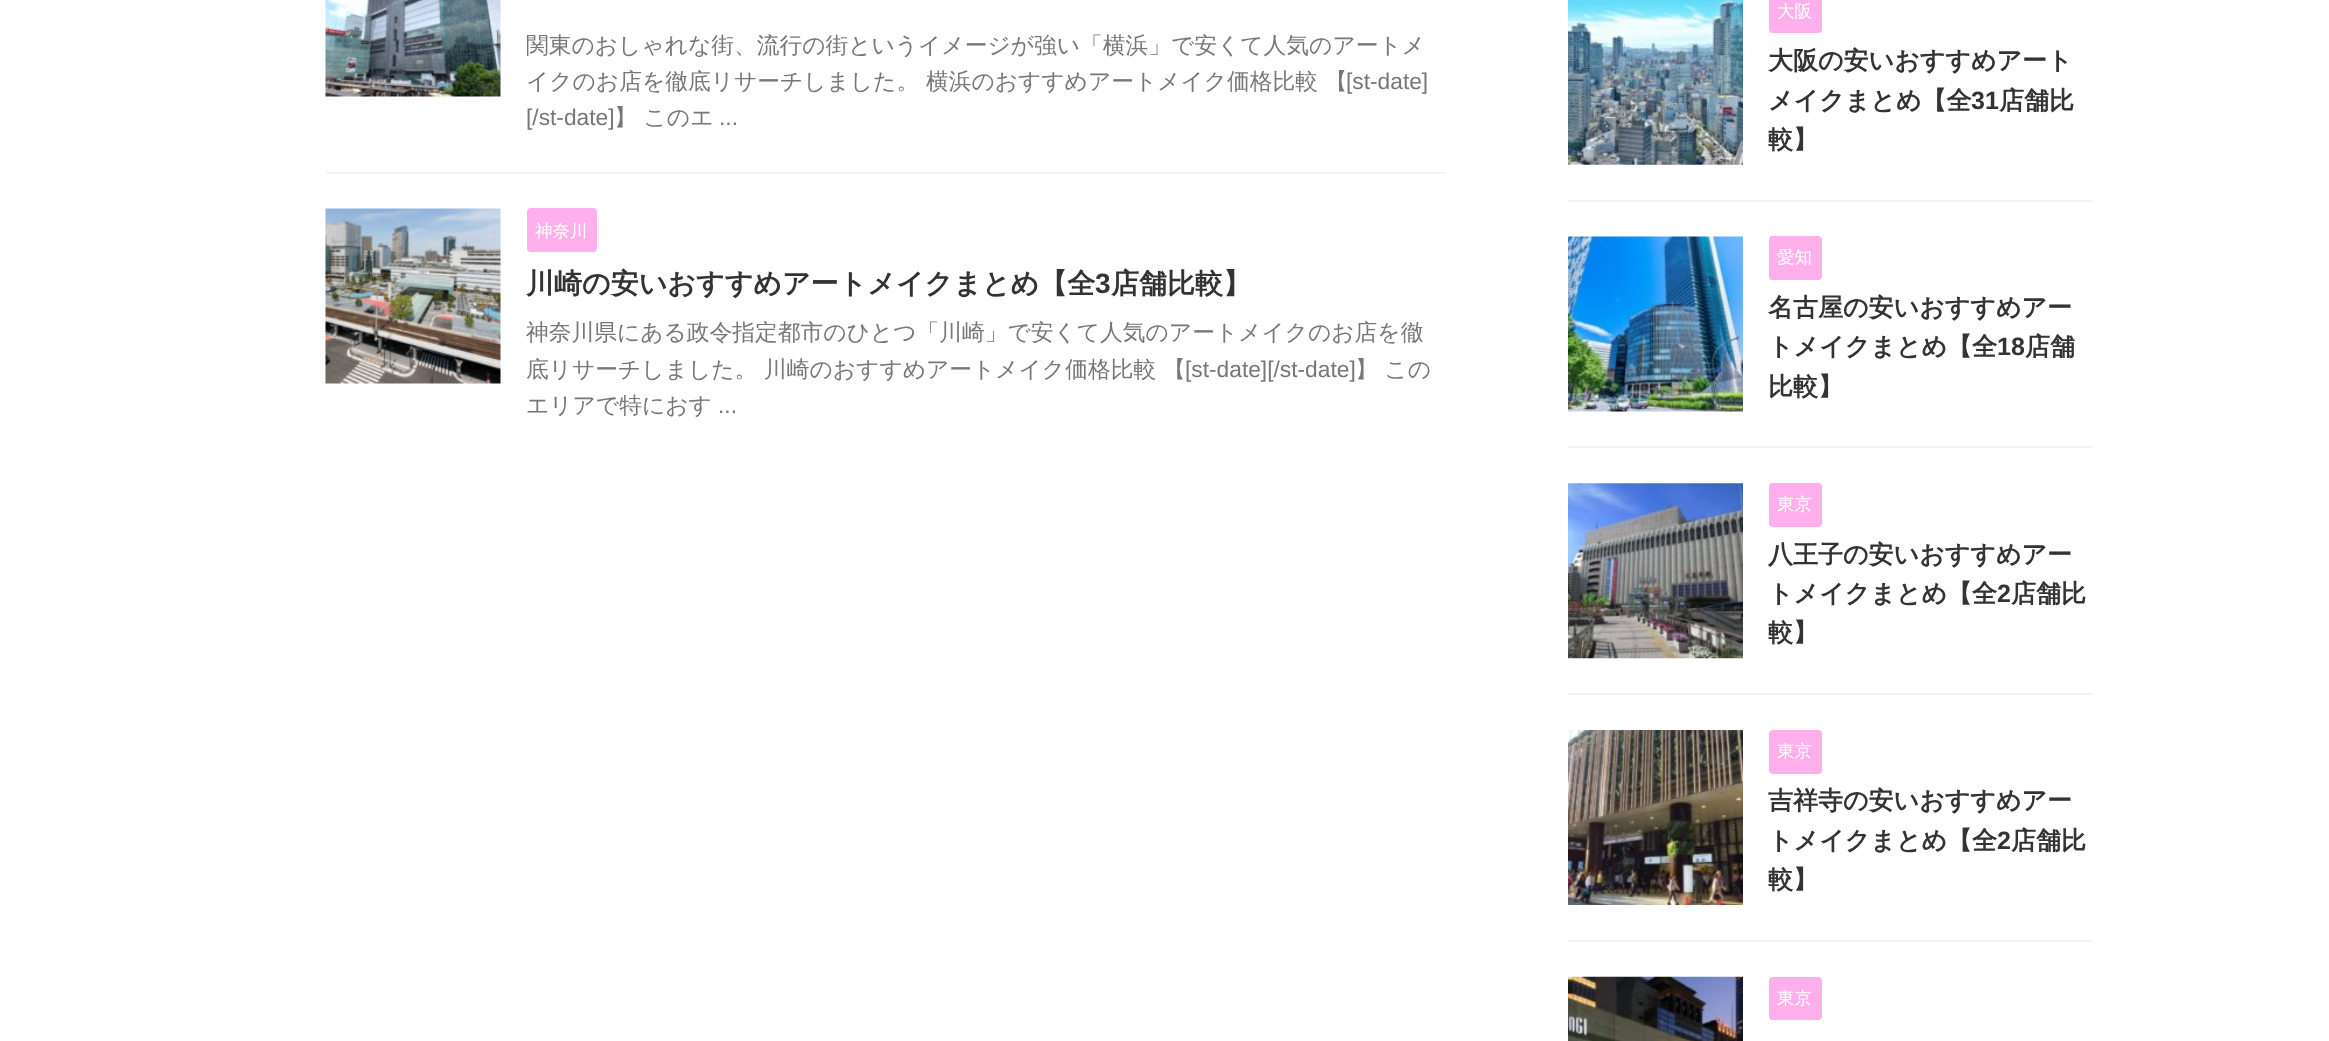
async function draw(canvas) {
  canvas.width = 2329;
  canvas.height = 1041;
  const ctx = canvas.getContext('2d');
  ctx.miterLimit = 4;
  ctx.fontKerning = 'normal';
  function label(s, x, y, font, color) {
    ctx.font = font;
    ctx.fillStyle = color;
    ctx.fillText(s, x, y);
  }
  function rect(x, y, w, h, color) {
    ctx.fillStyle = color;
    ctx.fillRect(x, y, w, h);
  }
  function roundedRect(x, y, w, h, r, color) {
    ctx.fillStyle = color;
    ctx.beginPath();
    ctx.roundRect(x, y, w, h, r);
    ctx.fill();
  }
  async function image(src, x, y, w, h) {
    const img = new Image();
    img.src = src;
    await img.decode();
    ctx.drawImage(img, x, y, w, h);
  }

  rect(0, 0, 2329, 1041, '#fff');
  rect(326, 172, 1120, 2, '#f3f3f3');
  await image('assets/img1.png', 325, 0, 176, 97);
  label('関東のおしゃれな街、流行の街というイメージが強い「横浜」で安くて人気のアートメ', 526, 53, '500 22.75px WenQuanYi Zen Hei', '#777');
  label('イクのお店を徹底リサーチしました。 横浜のおすすめアートメイク価格比較 【', 526, 89, '500 22.75px WenQuanYi Zen Hei', '#777');
  label('[st-date]', 1346, 89, '22.75px Liberation Sans', '#777');
  label('[/st-date]', 526, 125, '22.75px Liberation Sans', '#777');
  label('】 このエ', 614, 125, '500 22.75px WenQuanYi Zen Hei', '#777');
  label('...', 719, 125, '22.75px Liberation Sans', '#777');
  await image('assets/img2.png', 325, 208, 176, 176);
  roundedRect(527, 208, 70, 44, 4, '#ffafeb');
  label('神奈川', 535, 237, '500 17.5px WenQuanYi Zen Hei', '#fff');
  label('川崎の安いおすすめアートメイクまとめ【全', 526, 293, 'bold 28px WenQuanYi Zen Hei', '#333');
  label('3', 1095, 293, 'bold 28px Liberation Sans', '#333');
  label('店舗比較】', 1111, 293, 'bold 28px WenQuanYi Zen Hei', '#333');
  label('神奈川県にある政令指定都市のひとつ「川崎」で安くて人気のアートメイクのお店を徹', 526, 340, '500 22.75px WenQuanYi Zen Hei', '#777');
  label('底リサーチしました。 川崎のおすすめアートメイク価格比較 【', 526, 377, '500 22.75px WenQuanYi Zen Hei', '#777');
  label('[st-date][/st-date]', 1185, 377, '22.75px Liberation Sans', '#777');
  label('】 この', 1355, 377, '500 22.75px WenQuanYi Zen Hei', '#777');
  label('エリアで特におす', 526, 413, '500 22.75px WenQuanYi Zen Hei', '#777');
  label('...', 718, 413, '22.75px Liberation Sans', '#777');
  rect(1568, 200, 525, 2, '#f3f3f3');
  await image('assets/img3.png', 1568, 0, 175, 165);
  roundedRect(1769, -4, 53, 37, 4, '#ffafeb');
  label('大阪', 1777, 17, '500 17.5px WenQuanYi Zen Hei', '#fff');
  label('大阪の安いおすすめアート', 1768, 69, 'bold 25px WenQuanYi Zen Hei', '#333');
  label('メイクまとめ【全', 1768, 109, 'bold 25px WenQuanYi Zen Hei', '#333');
  label('31', 1971, 109, 'bold 25px Liberation Sans', '#333');
  label('店舗比', 1999, 109, 'bold 25px WenQuanYi Zen Hei', '#333');
  label('較】', 1768, 148, 'bold 25px WenQuanYi Zen Hei', '#333');
  rect(1568, 446, 525, 2, '#f3f3f3');
  await image('assets/img4.png', 1568, 236, 175, 176);
  roundedRect(1769, 236, 53, 44, 4, '#ffafeb');
  label('愛知', 1777, 263, '500 17.5px WenQuanYi Zen Hei', '#fff');
  label('名古屋の安いおすすめアー', 1768, 316, 'bold 25px WenQuanYi Zen Hei', '#333');
  label('トメイクまとめ【全', 1768, 355, 'bold 25px WenQuanYi Zen Hei', '#333');
  label('18', 1997, 355, 'bold 25px Liberation Sans', '#333');
  label('店舗', 2025, 355, 'bold 25px WenQuanYi Zen Hei', '#333');
  label('比較】', 1768, 395, 'bold 25px WenQuanYi Zen Hei', '#333');
  rect(1568, 693, 525, 2, '#f3f3f3');
  await image('assets/img5.png', 1568, 483, 175, 176);
  roundedRect(1769, 483, 53, 44, 4, '#ffafeb');
  label('東京', 1777, 510, '500 17.5px WenQuanYi Zen Hei', '#fff');
  label('八王子の安いおすすめアー', 1768, 563, 'bold 25px WenQuanYi Zen Hei', '#333');
  label('トメイクまとめ【全', 1768, 602, 'bold 25px WenQuanYi Zen Hei', '#333');
  label('2', 1997, 602, 'bold 25px Liberation Sans', '#333');
  label('店舗比', 2011, 602, 'bold 25px WenQuanYi Zen Hei', '#333');
  label('較】', 1768, 641, 'bold 25px WenQuanYi Zen Hei', '#333');
  rect(1568, 940, 525, 2, '#f3f3f3');
  await image('assets/img6.png', 1568, 730, 175, 175);
  roundedRect(1769, 730, 53, 44, 4, '#ffafeb');
  label('東京', 1777, 757, '500 17.5px WenQuanYi Zen Hei', '#fff');
  label('吉祥寺の安いおすすめアー', 1768, 809, 'bold 25px WenQuanYi Zen Hei', '#333');
  label('トメイクまとめ【全', 1768, 849, 'bold 25px WenQuanYi Zen Hei', '#333');
  label('2', 1997, 849, 'bold 25px Liberation Sans', '#333');
  label('店舗比', 2011, 849, 'bold 25px WenQuanYi Zen Hei', '#333');
  label('較】', 1768, 888, 'bold 25px WenQuanYi Zen Hei', '#333');
  await image('assets/img7.png', 1568, 976, 175, 65);
  roundedRect(1769, 977, 53, 43, 4, '#ffafeb');
  label('東京', 1777, 1004, '500 17.5px WenQuanYi Zen Hei', '#fff');
}

draw(document.querySelector('canvas'));
